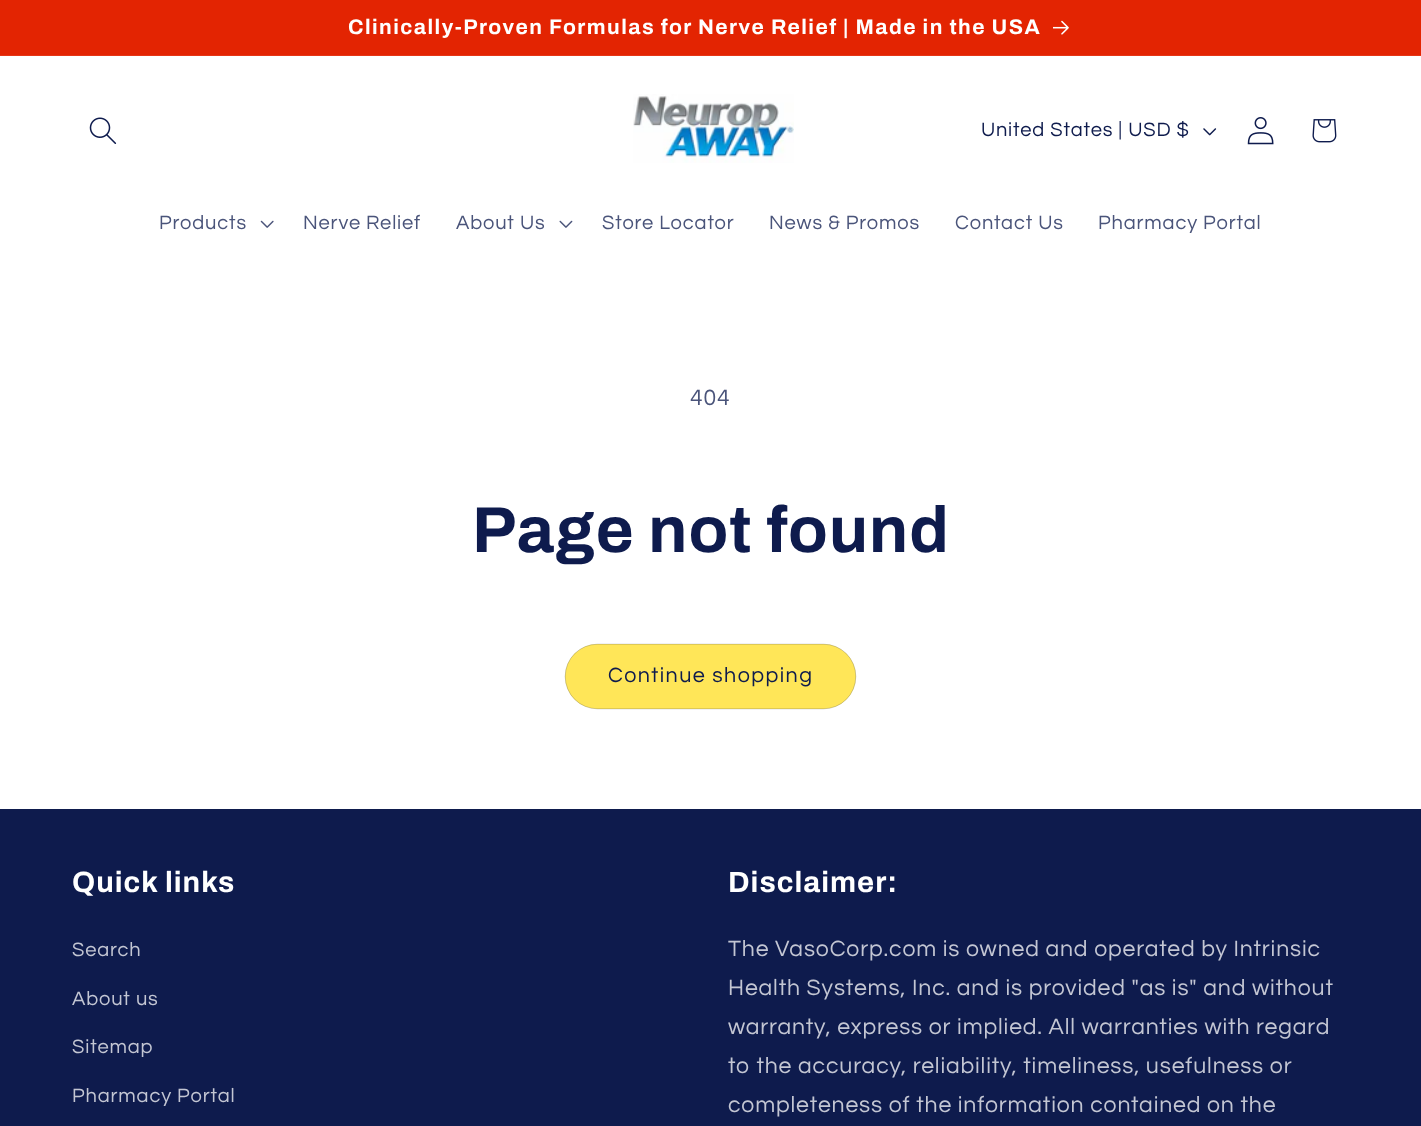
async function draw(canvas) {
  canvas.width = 1421;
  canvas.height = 1126;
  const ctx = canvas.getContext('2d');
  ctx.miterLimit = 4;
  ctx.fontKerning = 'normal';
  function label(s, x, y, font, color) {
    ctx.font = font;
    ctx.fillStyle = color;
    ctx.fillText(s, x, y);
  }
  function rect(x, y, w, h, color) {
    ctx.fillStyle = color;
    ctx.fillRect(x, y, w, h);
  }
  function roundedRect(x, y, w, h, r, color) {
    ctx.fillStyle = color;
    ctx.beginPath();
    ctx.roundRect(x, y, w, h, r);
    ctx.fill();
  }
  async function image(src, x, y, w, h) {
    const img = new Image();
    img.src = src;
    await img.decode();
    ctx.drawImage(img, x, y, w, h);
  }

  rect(0, 0, 1421, 1126, '#fff');
  rect(0, 0, 1421, 55, '#e32402');
  rect(0, 55, 1421, 1, '#e53616');
  ctx.letterSpacing = '1.45px';
  label('Clinically-Proven Formulas for Nerve Relief | Made in the USA', 348, 34, 'bold 21.1px Archivo', '#fff');
  await image('assets/img1.png', 1053, 20, 16, 15);
  await image('assets/img2.png', 89, 117, 28, 27);
  await image('assets/img3.png', 633, 94, 161, 69);
  ctx.letterSpacing = '0.85px';
  label('United States | USD $', 981, 136, '20.1px Questrial', '#0e1b4d');
  await image('assets/img4.png', 1203, 128, 14, 8);
  await image('assets/img5.png', 1247, 117, 27, 28);
  await image('assets/img6.png', 1312, 119, 25, 24);
  label('Products', 159, 229, '20.1px Questrial', '#4a547a');
  await image('assets/img7.png', 260, 220, 14, 8);
  label('Nerve Relief', 303, 229, '20.1px Questrial', '#4a547a');
  label('About Us', 456, 229, '20.1px Questrial', '#4a547a');
  await image('assets/img8.png', 559, 220, 14, 8);
  label('Store Locator', 602, 229, '20.1px Questrial', '#4a547a');
  label('News & Promos', 769, 229, '20.1px Questrial', '#4a547a');
  label('Contact Us', 955, 229, '20.1px Questrial', '#4a547a');
  label('Pharmacy Portal', 1098, 229, '20.1px Questrial', '#4a547a');
  label('404', 690, 405, '23px Questrial', '#4a547a');
  ctx.letterSpacing = '1px';
  label('Page not found', 472, 552, 'bold 65px Archivo', '#0e1b4d');
  roundedRect(565, 644, 291, 65, 32.5, '#ffe658');
  ctx.beginPath();
  ctx.roundRect(565.2, 644.2, 290.6, 64.6, 32.3);
  ctx.strokeStyle = '#0e1b4d80';
  ctx.lineWidth = 0.4;
  ctx.stroke();
  ctx.letterSpacing = '1.45px';
  label('Continue shopping', 608, 682, '21.5px Questrial', '#0e1b4d');
  rect(0, 809, 1421, 317, '#0e1b4d');
  ctx.letterSpacing = '1px';
  label('Quick links', 72, 892, 'bold 29.25px Archivo', '#fff');
  ctx.letterSpacing = '0.85px';
  label('Search', 72, 956, '20.1px Questrial', '#c3c6d3');
  label('About us', 72, 1005, '20.1px Questrial', '#c3c6d3');
  label('Sitemap', 72, 1053, '20.1px Questrial', '#c3c6d3');
  label('Pharmacy Portal', 72, 1102, '20.1px Questrial', '#c3c6d3');
  ctx.letterSpacing = '1px';
  label('Disclaimer:', 728, 892, 'bold 29.25px Archivo', '#fff');
  ctx.letterSpacing = '0.85px';
  label('The VasoCorp.com is owned and operated by Intrinsic', 728, 956, '23px Questrial', '#c3c6d3');
  label('Health Systems, Inc. and is provided "as is" and without', 728, 995, '23px Questrial', '#c3c6d3');
  label('warranty, express or implied. All warranties with regard', 728, 1034, '23px Questrial', '#c3c6d3');
  label('to the accuracy, reliability, timeliness, usefulness or', 728, 1073, '23px Questrial', '#c3c6d3');
  label('completeness of the information contained on the', 728, 1112, '23px Questrial', '#c3c6d3');
}

draw(document.querySelector('canvas'));
